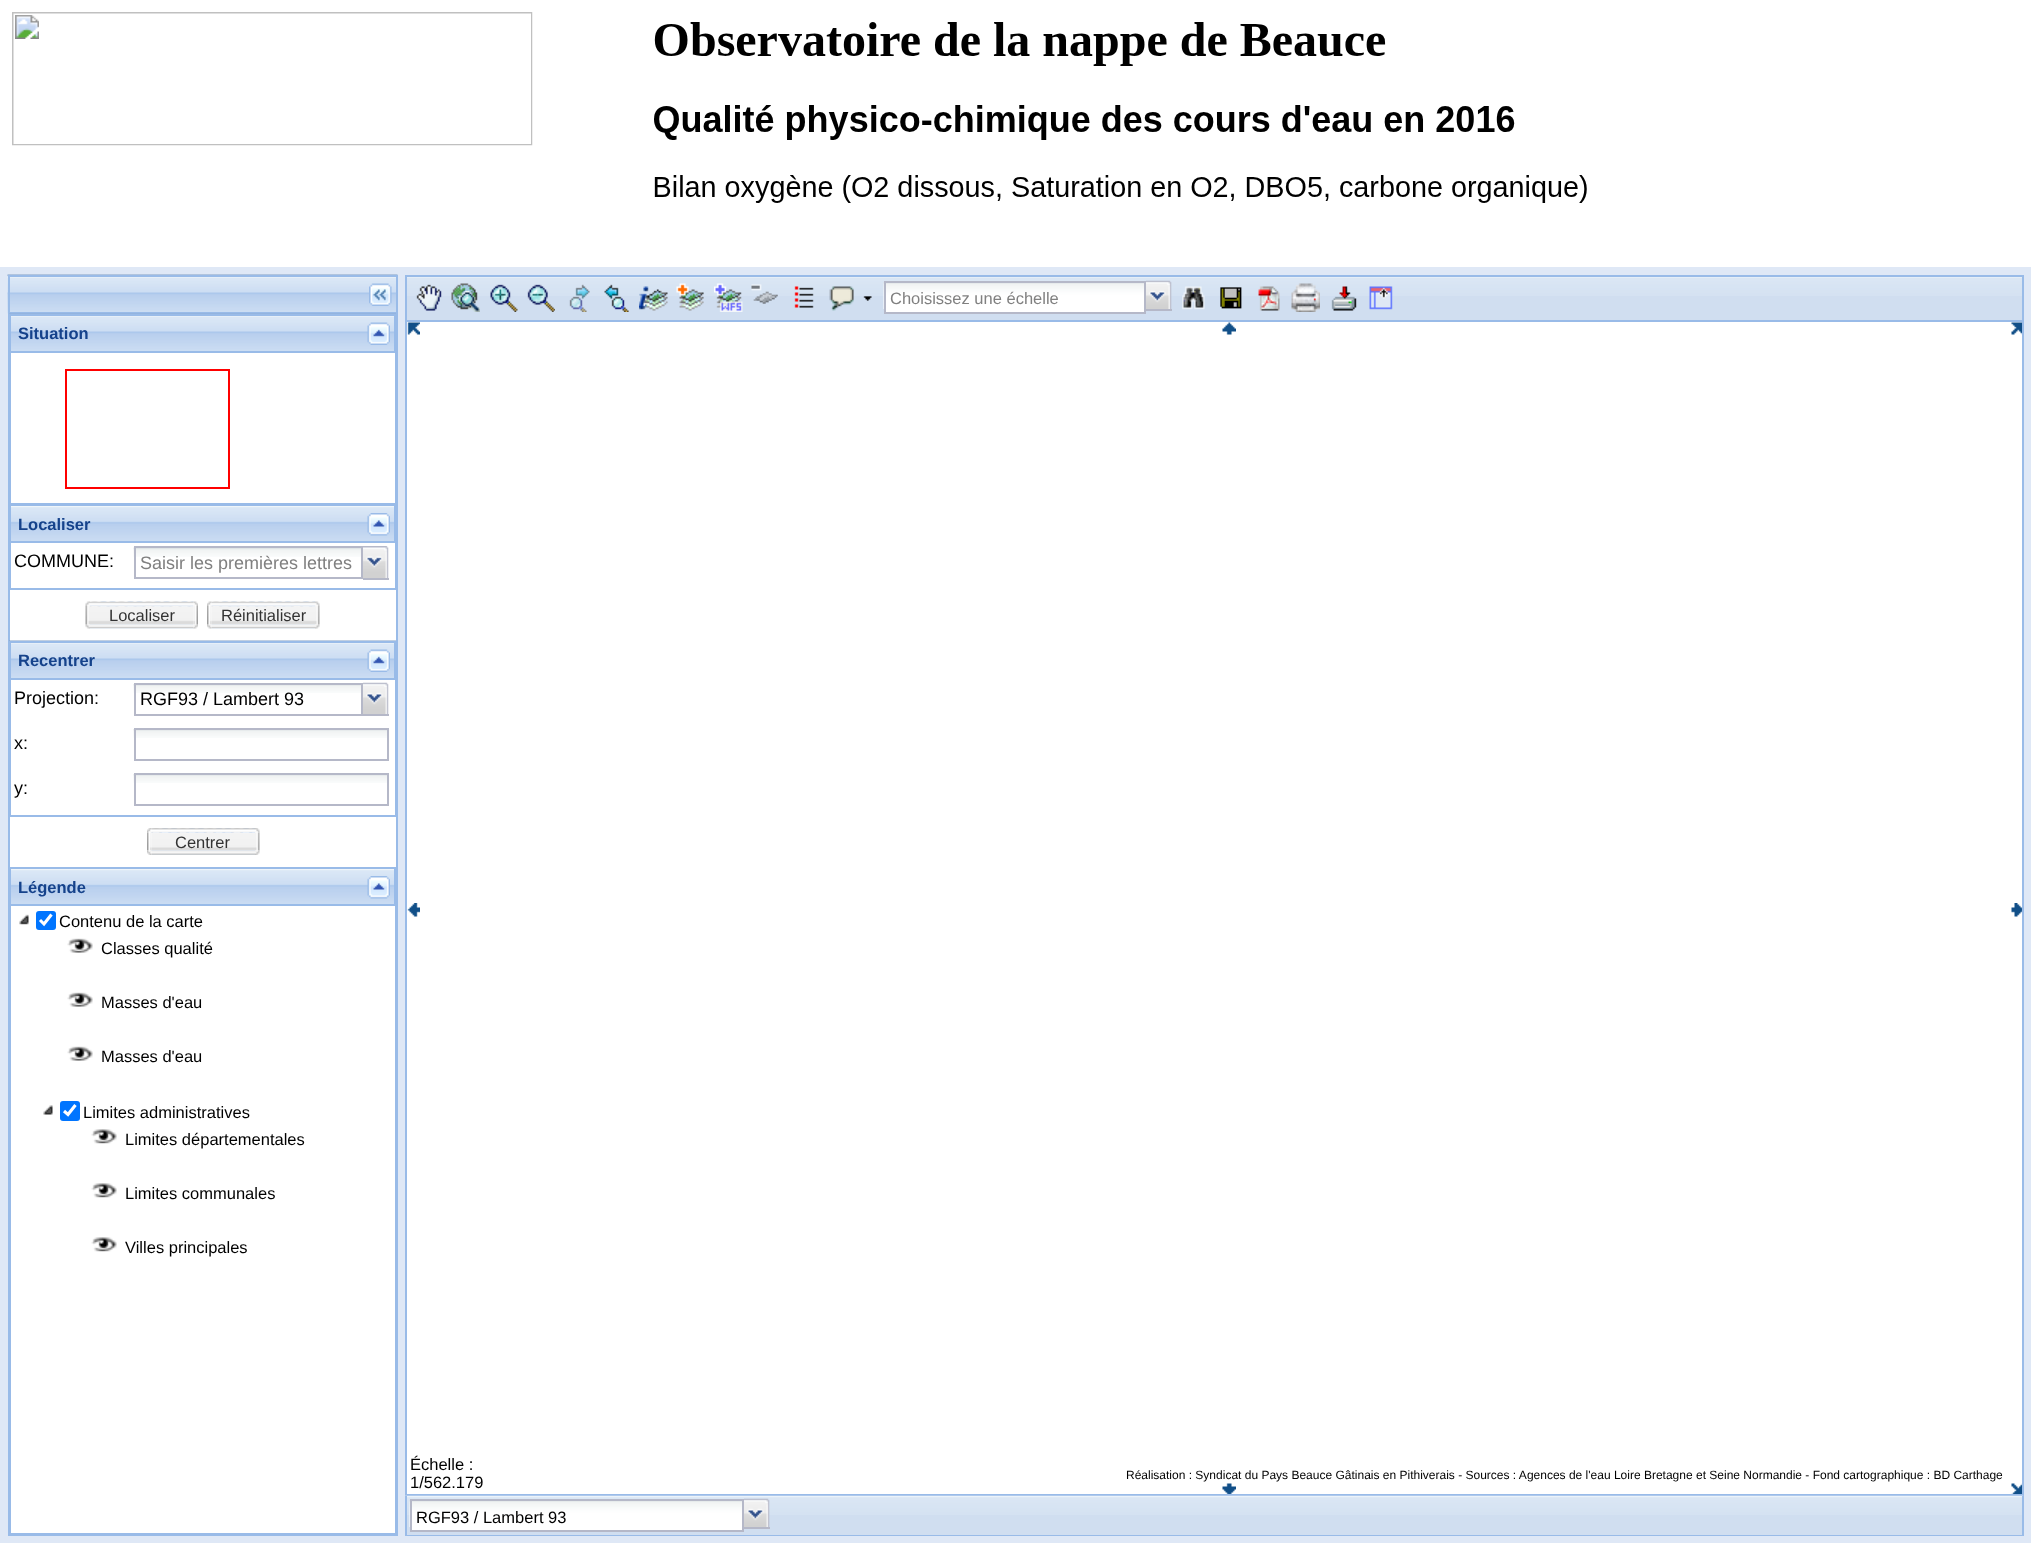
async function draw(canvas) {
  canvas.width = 2031;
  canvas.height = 1543;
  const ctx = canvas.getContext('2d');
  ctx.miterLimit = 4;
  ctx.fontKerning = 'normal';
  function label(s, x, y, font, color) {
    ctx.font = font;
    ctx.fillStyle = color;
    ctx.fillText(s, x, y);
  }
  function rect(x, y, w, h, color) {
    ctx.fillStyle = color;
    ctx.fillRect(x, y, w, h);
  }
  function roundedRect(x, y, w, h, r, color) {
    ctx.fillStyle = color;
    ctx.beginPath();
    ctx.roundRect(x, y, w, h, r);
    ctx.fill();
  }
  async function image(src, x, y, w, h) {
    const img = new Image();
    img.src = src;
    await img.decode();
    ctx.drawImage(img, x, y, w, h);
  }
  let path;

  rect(0, 0, 2031, 1543, '#dfe8f6');
  rect(0, 0, 2031, 267, '#fff');
  await image('assets/img1.png', 12, 12, 1575, 191);
  await image('assets/img2.png', 7, 274, 391, 40);
  ctx.strokeStyle = '#99bbe8';
  ctx.lineWidth = 2;
  ctx.strokeRect(9, 276, 388, 37);
  await image('assets/img3.png', 369, 283, 23, 23);
  rect(10, 590, 386, 277, '#fff');
  rect(396, 314, 2, 1222, '#99bbe8');
  rect(8, 1535, 390, 1, '#99bbe8');
  rect(8, 314, 2, 1222, '#99bbe8');
  await image('assets/img4.png', 9, 313, 387, 38);
  ctx.strokeRect(10, 315, 385, 37);
  label('Situation', 18, 339, 'bold 16.5px Liberation Sans', '#15428b');
  await image('assets/img5.png', 367, 322, 23, 23);
  rect(11, 353, 384, 150, '#fff');
  rect(395, 353, 1, 151, '#99bbe8');
  rect(9, 503, 387, 1, '#99bbe8');
  rect(10, 353, 1, 151, '#99bbe8');
  ctx.strokeStyle = '#f00';
  ctx.strokeRect(66, 370, 163, 118);
  await image('assets/img6.png', 11, 506, 383, 35);
  ctx.strokeStyle = '#99bbe8';
  ctx.strokeRect(10, 505, 385, 37);
  label('Localiser', 18, 530, 'bold 16.5px Liberation Sans', '#15428b');
  await image('assets/img7.png', 367, 513, 23, 23);
  rect(11, 543, 384, 45, '#fff');
  rect(395, 543, 1, 47, '#99bbe8');
  rect(9, 588, 387, 2, '#99bbe8');
  rect(10, 543, 1, 47, '#99bbe8');
  label('COMMUNE:', 14, 567, '18px Liberation Sans', '#000');
  await image('assets/img8.png', 133, 547, 228, 10);
  ctx.strokeStyle = '#b5b8c8';
  ctx.strokeRect(135, 547, 227, 31);
  label('Saisir les premières lettres', 140, 569, '18px Liberation Sans', '#808080');
  await image('assets/img9.png', 363, 546, 26, 32);
  rect(363, 578, 26, 2, '#b5b8c8');
  await image('assets/img10.png', 85, 601, 5, 5);
  await image('assets/img11.png', 90, 601, 104, 5);
  await image('assets/img12.png', 193, 601, 5, 5);
  await image('assets/img13.png', 85, 606, 5, 18);
  await image('assets/img14.png', 90, 606, 104, 18);
  label('Localiser', 109, 621, '16.5px Liberation Sans', '#333');
  await image('assets/img15.png', 193, 606, 5, 18);
  await image('assets/img16.png', 85, 624, 5, 5);
  await image('assets/img17.png', 90, 624, 104, 5);
  await image('assets/img18.png', 193, 624, 5, 5);
  await image('assets/img19.png', 207, 601, 5, 5);
  await image('assets/img20.png', 211, 601, 104, 5);
  await image('assets/img21.png', 315, 601, 5, 5);
  await image('assets/img22.png', 207, 606, 5, 18);
  await image('assets/img23.png', 211, 606, 104, 18);
  label('Réinitialiser', 221, 621, '16.5px Liberation Sans', '#333');
  await image('assets/img24.png', 315, 606, 5, 18);
  await image('assets/img25.png', 207, 624, 5, 5);
  await image('assets/img26.png', 211, 624, 104, 5);
  await image('assets/img27.png', 315, 624, 5, 5);
  await image('assets/img28.png', 9, 640, 387, 38);
  ctx.strokeStyle = '#99bbe8';
  ctx.strokeRect(10, 642, 385, 37);
  label('Recentrer', 18, 666, 'bold 16.5px Liberation Sans', '#15428b');
  await image('assets/img5.png', 367, 649, 23, 23);
  rect(395, 680, 1, 136, '#99bbe8');
  rect(9, 815, 387, 2, '#99bbe8');
  rect(10, 680, 1, 136, '#99bbe8');
  label('Projection:', 14, 704, '18px Liberation Sans', '#000');
  await image('assets/img29.png', 133, 684, 228, 9);
  ctx.strokeStyle = '#b5b8c8';
  ctx.strokeRect(135, 684, 227, 31);
  label('RGF93 / Lambert 93', 140, 705, '18px Liberation Sans', '#000');
  await image('assets/img30.png', 363, 682, 26, 32);
  rect(363, 714, 26, 2, '#b5b8c8');
  label('x:', 14, 749, '18px Liberation Sans', '#000');
  await image('assets/img31.png', 133, 729, 254, 9);
  ctx.strokeRect(135, 729, 253, 31);
  label('y:', 14, 794, '18px Liberation Sans', '#000');
  await image('assets/img31.png', 133, 774, 254, 9);
  ctx.strokeRect(135, 774, 253, 31);
  await image('assets/img32.png', 147, 828, 5, 5);
  await image('assets/img33.png', 151, 828, 104, 5);
  await image('assets/img34.png', 255, 828, 5, 5);
  await image('assets/img35.png', 147, 832, 5, 19);
  await image('assets/img36.png', 151, 832, 104, 19);
  label('Centrer', 175, 848, '16.5px Liberation Sans', '#333');
  await image('assets/img37.png', 255, 832, 5, 19);
  await image('assets/img38.png', 147, 850, 5, 5);
  await image('assets/img39.png', 151, 850, 104, 5);
  await image('assets/img40.png', 255, 850, 5, 5);
  await image('assets/img6.png', 11, 869, 383, 35);
  ctx.strokeStyle = '#99bbe8';
  ctx.strokeRect(10, 868, 385, 37);
  label('Légende', 18, 893, 'bold 16.5px Liberation Sans', '#15428b');
  await image('assets/img7.png', 367, 876, 23, 23);
  rect(11, 906, 384, 627, '#fff');
  rect(395, 906, 1, 629, '#99bbe8');
  rect(9, 1533, 387, 2, '#99bbe8');
  rect(10, 906, 1, 629, '#99bbe8');
  await image('assets/img41.png', 19, 914, 10, 11);
  roundedRect(36, 911, 20, 19, 3, '#0075ff');
  path = new Path2D('M40 920L44 924L51.5 914.5');
  ctx.strokeStyle = '#fff';
  ctx.lineWidth = 3.1;
  ctx.stroke(path);
  label('Contenu de la carte', 59, 927, '16.5px Liberation Sans', '#000');
  await image('assets/img42.png', 67, 938, 26, 15);
  label('Classes qualité', 101, 954, '16.5px Liberation Sans', '#000');
  await image('assets/img42.png', 67, 992, 26, 15);
  label('Masses d\'eau', 101, 1008, '16.5px Liberation Sans', '#000');
  await image('assets/img42.png', 67, 1046, 26, 15);
  label('Masses d\'eau', 101, 1062, '16.5px Liberation Sans', '#000');
  await image('assets/img43.png', 43, 1105, 10, 10);
  roundedRect(60, 1101, 20, 20, 3, '#0075ff');
  path = new Path2D('M64 1111L68 1114.5L75.5 1105');
  ctx.stroke(path);
  label('Limites administratives', 83, 1118, '16.5px Liberation Sans', '#000');
  await image('assets/img44.png', 91, 1129, 26, 15);
  label('Limites départementales', 125, 1145, '16.5px Liberation Sans', '#000');
  await image('assets/img44.png', 91, 1183, 26, 15);
  label('Limites communales', 125, 1199, '16.5px Liberation Sans', '#000');
  await image('assets/img44.png', 91, 1237, 26, 15);
  label('Villes principales', 125, 1253, '16.5px Liberation Sans', '#000');
  rect(407, 296, 1615, 24, '#d0def0');
  await image('assets/img45.png', 407, 277, 1615, 19);
  rect(405, 275, 1619, 2, '#99bbe8');
  rect(2022, 275, 2, 45, '#99bbe8');
  rect(405, 275, 2, 45, '#99bbe8');
  await image('assets/img46.png', 416, 284, 26, 27);
  await image('assets/img47.png', 451, 283, 29, 29);
  await image('assets/img48.png', 490, 284, 28, 28);
  await image('assets/img49.png', 527, 284, 28, 28);
  await image('assets/img50.png', 569, 284, 21, 28);
  await image('assets/img51.png', 604, 284, 25, 28);
  await image('assets/img52.png', 639, 286, 29, 25);
  await image('assets/img53.png', 676, 283, 28, 28);
  await image('assets/img54.png', 714, 283, 29, 29);
  await image('assets/img55.png', 751, 284, 27, 20);
  await image('assets/img56.png', 794, 286, 20, 22);
  await image('assets/img57.png', 863, 296, 9, 5);
  await image('assets/img58.png', 829, 286, 25, 25);
  rect(886, 309, 258, 3, '#fff');
  await image('assets/img59.png', 883, 282, 261, 27);
  ctx.strokeStyle = '#b5b8c8';
  ctx.lineWidth = 2;
  ctx.strokeRect(885, 282, 260, 31);
  label('Choisissez une échelle', 890, 304, '16.5px Liberation Sans', '#808080');
  await image('assets/img60.png', 1146, 280, 26, 29);
  rect(1146, 309, 26, 2, '#b5b8c8');
  await image('assets/img61.png', 1182, 286, 23, 24);
  await image('assets/img62.png', 1220, 287, 22, 22);
  await image('assets/img63.png', 1258, 286, 22, 25);
  await image('assets/img64.png', 1291, 283, 29, 29);
  await image('assets/img65.png', 1331, 286, 26, 25);
  await image('assets/img66.png', 1369, 286, 24, 24);
  ctx.fillStyle = '#fff';
  ctx.beginPath();
  ctx.rect(406, 321, 1617, 1174);
  ctx.fill();
  ctx.strokeStyle = '#99bbe8';
  ctx.stroke();
  await image('assets/img67.png', 407, 322, 13, 13);
  await image('assets/img68.png', 1222, 322, 14, 13);
  await image('assets/img69.png', 2011, 322, 11, 13);
  await image('assets/img70.png', 407, 903, 13, 14);
  await image('assets/img71.png', 2011, 903, 11, 14);
  await image('assets/img72.png', 1222, 1483, 14, 11);
  await image('assets/img73.png', 2011, 1483, 11, 11);
  label('Échelle :', 410, 1470, '16.5px Liberation Sans', '#000');
  label('1/562.179', 410, 1488, '16.5px Liberation Sans', '#000');
  label('Réalisation : Syndicat du Pays Beauce Gâtinais en Pithiverais - Sources : Agences de l\'eau Loire Bretagne et Seine Normandie - Fond cartographique : BD Carthage', 1126, 1479, '12px Liberation Sans', '#000');
  rect(407, 1515, 1615, 20, '#d0def0');
  await image('assets/img74.png', 405, 1495, 1619, 20);
  rect(2022, 1496, 2, 40, '#99bbe8');
  rect(405, 1535, 1619, 1, '#99bbe8');
  rect(405, 1496, 2, 40, '#99bbe8');
  rect(412, 1527, 330, 3, '#fff');
  await image('assets/img75.png', 409, 1500, 333, 27);
  ctx.strokeStyle = '#b5b8c8';
  ctx.strokeRect(411, 1500, 332, 31);
  label('RGF93 / Lambert 93', 416, 1523, '16.5px Liberation Sans', '#000');
  await image('assets/img76.png', 744, 1498, 26, 29);
  rect(744, 1527, 26, 2, '#b5b8c8');
}

draw(document.querySelector('canvas'));
